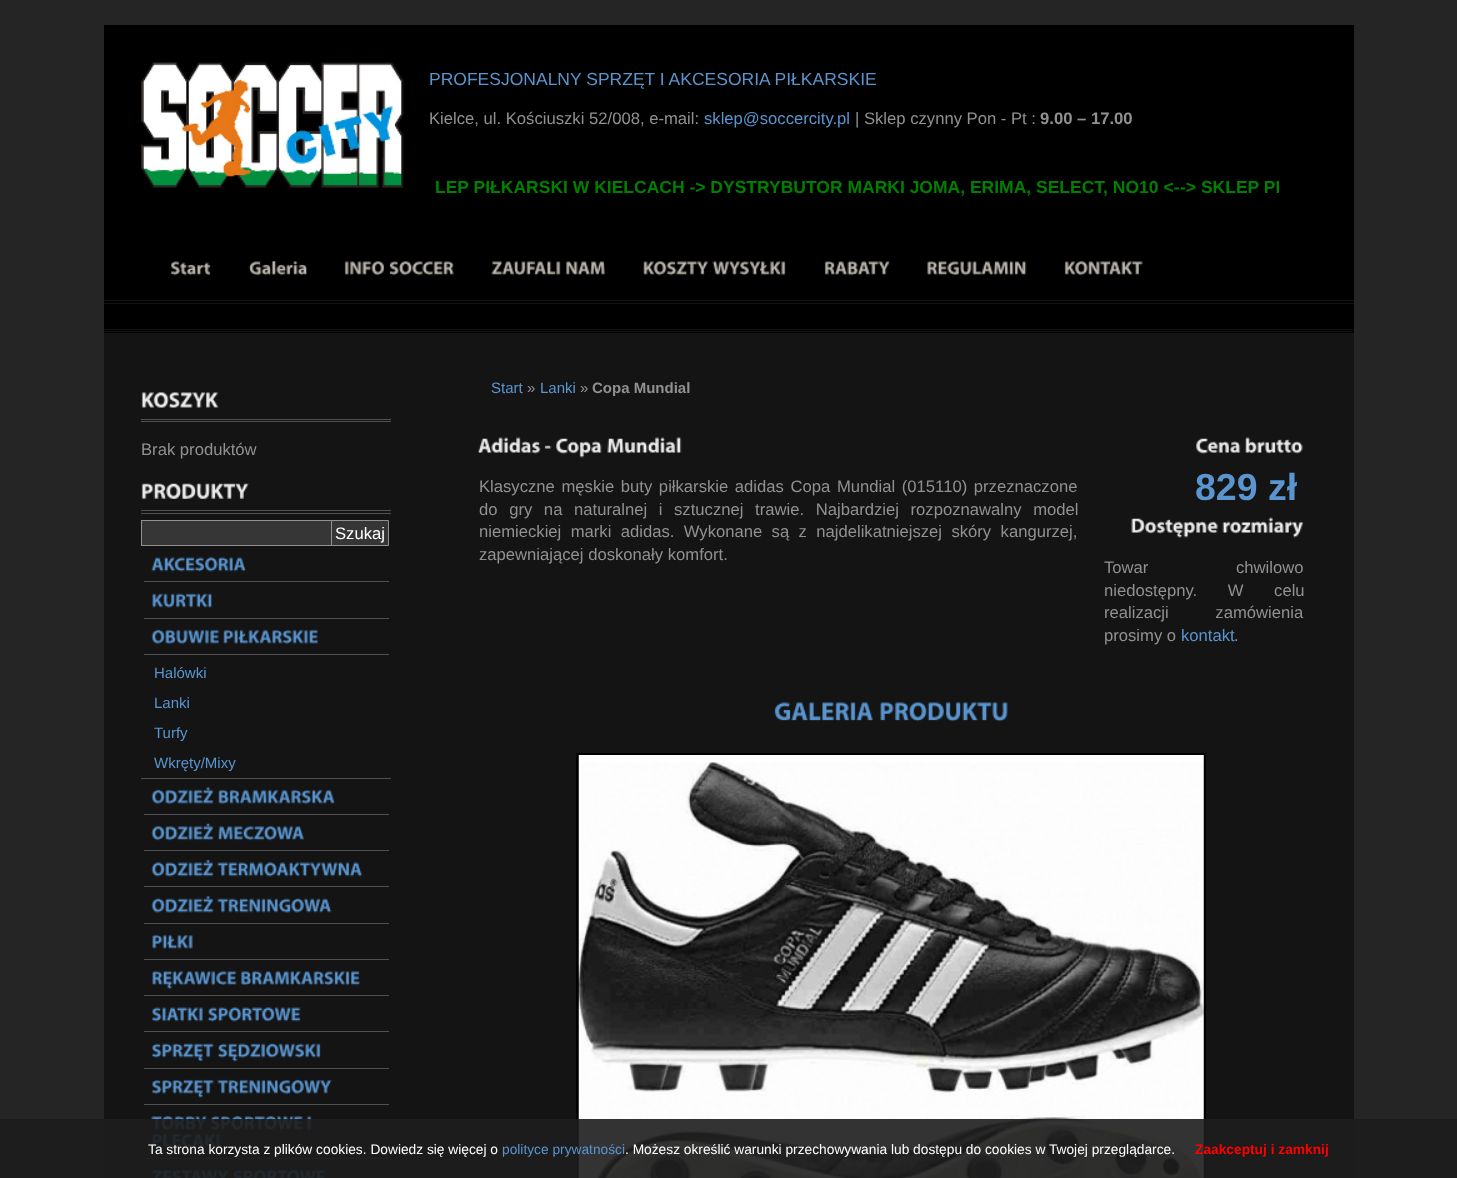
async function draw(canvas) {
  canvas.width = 1457;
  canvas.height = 1178;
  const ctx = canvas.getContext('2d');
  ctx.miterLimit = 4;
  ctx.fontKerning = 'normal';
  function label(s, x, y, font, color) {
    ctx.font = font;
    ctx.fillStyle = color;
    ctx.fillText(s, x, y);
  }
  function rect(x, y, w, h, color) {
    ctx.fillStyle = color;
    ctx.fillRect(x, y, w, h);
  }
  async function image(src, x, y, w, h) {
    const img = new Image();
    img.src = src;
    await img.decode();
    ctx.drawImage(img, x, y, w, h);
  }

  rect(0, 0, 1457, 1178, '#252525');
  rect(104, 333, 1250, 845, '#141414');
  rect(104, 25, 1250, 275, '#000');
  await image('assets/img1.png', 141, 62, 263, 126);
  label('PROFESJONALNY SPRZĘT I AKCESORIA PIŁKARSKIE', 429, 85, '17.5px Liberation Sans', '#5a95cf');
  label('Kielce, ul. Kościuszki 52/008, e-mail:', 429, 124, '16.65px Liberation Sans', '#919191');
  label('sklep@soccercity.pl', 704, 124, '16.65px Liberation Sans', '#5a95cf');
  label('| Sklep czynny Pon - Pt :', 855, 124, '16.65px Liberation Sans', '#919191');
  label('9.00 – 17.00', 1040, 124, 'bold 16.65px Liberation Sans', '#919191');
  label('LEP PIŁKARSKI W KIELCACH -> DYSTRYBUTOR MARKI JOMA, ERIMA, SELECT, NO10 <-', 435, 193, 'bold 17.5px Liberation Sans', '#008000');
  ctx.save();
  ctx.beginPath();
  ctx.rect(429, 146, 850, 60);
  ctx.clip();
  label('-> SKLEP PI', 1180, 193, 'bold 17.5px Liberation Sans', '#008000');
  ctx.restore();
  await image('assets/img2.png', 171, 261, 40, 15);
  await image('assets/img3.png', 248, 261, 60, 15);
  await image('assets/img4.png', 344, 261, 41, 15);
  await image('assets/img5.png', 389, 261, 65, 15);
  await image('assets/img6.png', 491, 261, 70, 15);
  await image('assets/img7.png', 566, 261, 40, 15);
  await image('assets/img8.png', 643, 261, 66, 15);
  await image('assets/img9.png', 712, 261, 74, 15);
  await image('assets/img10.png', 824, 261, 66, 15);
  await image('assets/img11.png', 927, 261, 100, 15);
  await image('assets/img12.png', 1064, 261, 79, 15);
  rect(104, 301, 1250, 32, '#000');
  rect(104, 300, 1250, 1, '#111');
  rect(104, 303, 1250, 1, '#111');
  rect(104, 329, 1250, 1, '#111');
  rect(104, 331, 1250, 1, '#111');
  rect(141, 419, 250, 1, '#515151');
  rect(141, 421, 250, 1, '#515151');
  await image('assets/img13.png', 141, 392, 78, 16);
  label('Brak produktów', 141, 455, '16.65px Liberation Sans', '#919191');
  rect(141, 510, 250, 1, '#515151');
  rect(141, 513, 250, 1, '#515151');
  await image('assets/img14.png', 141, 483, 108, 16);
  rect(142, 521, 189, 24, '#363636');
  ctx.strokeStyle = '#919191';
  ctx.strokeRect(141.5, 520.5, 228, 25);
  ctx.beginPath();
  ctx.rect(331.5, 520.5, 57, 25);
  ctx.fill();
  ctx.stroke();
  label('Szukaj', 335, 539, '16.65px Liberation Sans', '#fff');
  rect(144, 581, 245, 1, '#515151');
  await image('assets/img15.png', 151, 557, 95, 15);
  rect(144, 618, 245, 1, '#515151');
  await image('assets/img16.png', 152, 593, 60, 15);
  rect(144, 654, 245, 1, '#515151');
  await image('assets/img17.png', 151, 629, 68, 15);
  await image('assets/img18.png', 223, 629, 95, 15);
  rect(141, 778, 250, 1, '#515151');
  label('Halówki', 154, 678, '15px Liberation Sans', '#5a95cf');
  label('Lanki', 154, 708, '15px Liberation Sans', '#5a95cf');
  label('Turfy', 154, 738, '15px Liberation Sans', '#5a95cf');
  label('Wkręty/Mixy', 154, 768, '15px Liberation Sans', '#5a95cf');
  rect(144, 814, 245, 1, '#515151');
  await image('assets/img19.png', 151, 787, 63, 17);
  await image('assets/img20.png', 218, 789, 117, 15);
  rect(144, 850, 245, 1, '#515151');
  await image('assets/img21.png', 151, 823, 63, 18);
  await image('assets/img22.png', 218, 826, 86, 15);
  rect(144, 886, 245, 1, '#515151');
  await image('assets/img23.png', 151, 859, 63, 18);
  await image('assets/img24.png', 217, 862, 146, 15);
  rect(144, 923, 245, 1, '#515151');
  await image('assets/img25.png', 151, 896, 63, 17);
  await image('assets/img26.png', 217, 898, 115, 15);
  rect(144, 959, 245, 1, '#515151');
  await image('assets/img27.png', 152, 934, 41, 15);
  rect(144, 995, 245, 1, '#515151');
  await image('assets/img28.png', 152, 971, 85, 18);
  await image('assets/img29.png', 241, 971, 120, 15);
  rect(144, 1031, 245, 1, '#515151');
  await image('assets/img30.png', 151, 1007, 52, 15);
  await image('assets/img31.png', 208, 1007, 93, 15);
  rect(144, 1068, 245, 1, '#515151');
  await image('assets/img32.png', 152, 1043, 62, 19);
  await image('assets/img33.png', 218, 1043, 103, 19);
  rect(144, 1104, 245, 1, '#515151');
  await image('assets/img34.png', 152, 1079, 62, 19);
  await image('assets/img35.png', 217, 1079, 115, 15);
  rect(144, 1158, 245, 1, '#515151');
  await image('assets/img36.png', 151, 1116, 56, 15);
  await image('assets/img37.png', 210, 1116, 93, 15);
  await image('assets/img38.png', 307, 1116, 5, 15);
  await image('assets/img39.png', 152, 1133, 69, 15);
  await image('assets/img40.png', 152, 1169, 77, 9);
  await image('assets/img41.png', 233, 1169, 93, 9);
  label('Start', 491, 393, '15px Liberation Sans', '#5a95cf');
  label('»', 527, 393, '15px Liberation Sans', '#919191');
  label('Lanki', 540, 393, '15px Liberation Sans', '#5a95cf');
  label('»', 580, 393, '15px Liberation Sans', '#919191');
  label('Copa Mundial', 592, 393, 'bold 15px Liberation Sans', '#919191');
  await image('assets/img42.png', 478, 437, 63, 17);
  await image('assets/img43.png', 544, 445, 8, 4);
  await image('assets/img44.png', 556, 438, 46, 20);
  await image('assets/img45.png', 607, 437, 75, 17);
  ctx.wordSpacing = '2px';
  label('Klasyczne męskie buty piłkarskie adidas Copa Mundial (015110) przeznaczone', 479, 492, '16.65px Liberation Sans', '#919191');
  ctx.wordSpacing = '7px';
  label('do gry na naturalnej i sztucznej trawie. Najbardziej rozpoznawalny model', 479, 515, '16.65px Liberation Sans', '#919191');
  ctx.wordSpacing = '4.75px';
  label('niemieckiej marki adidas. Wykonane są z najdelikatniejszej skóry kangurzej,', 479, 537, '16.65px Liberation Sans', '#919191');
  ctx.wordSpacing = '0px';
  label('zapewniającej doskonały komfort.', 479, 560, '16.65px Liberation Sans', '#919191');
  await image('assets/img46.png', 1196, 438, 45, 16);
  await image('assets/img47.png', 1245, 437, 58, 17);
  label('829 zł', 1195, 500, 'bold 37.5px Liberation Sans', '#5a95cf');
  await image('assets/img48.png', 1131, 518, 87, 20);
  await image('assets/img49.png', 1222, 517, 82, 21);
  ctx.wordSpacing = '83px';
  label('Towar chwilowo', 1104, 573, '16.65px Liberation Sans', '#919191');
  ctx.wordSpacing = '26px';
  label('niedostępny. W celu', 1104, 596, '16.65px Liberation Sans', '#919191');
  ctx.wordSpacing = '42px';
  label('realizacji zamówienia', 1104, 618, '16.65px Liberation Sans', '#919191');
  ctx.wordSpacing = '0px';
  label('prosimy o', 1104, 641, '16.65px Liberation Sans', '#919191');
  label('kontakt', 1181, 641, '16.65px Liberation Sans', '#5a95cf');
  label('.', 1234, 641, '16.65px Liberation Sans', '#919191');
  await image('assets/img50.png', 774, 702, 99, 19);
  await image('assets/img51.png', 880, 702, 128, 20);
  ctx.strokeStyle = '#000';
  ctx.lineWidth = 3;
  ctx.strokeRect(577.5, 754.5, 627, 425);
  await image('assets/img52.png', 578, 755, 626, 423);
  rect(0, 1119, 1457, 59, '#1d1d1de6');
  label('Ta strona korzysta z plików cookies. Dowiedz się więcej o', 148, 1154, '13.75px Liberation Sans', '#fff');
  label('polityce prywatności', 502, 1154, '13.75px Liberation Sans', '#5a95cf');
  label('. Możesz określić warunki przechowywania lub dostępu do cookies w Twojej przeglądarce.', 625, 1154, '13.75px Liberation Sans', '#fff');
  label('Zaakceptuj i zamknij', 1195, 1154, 'bold 13.75px Liberation Sans', '#f00');
}

draw(document.querySelector('canvas'));
